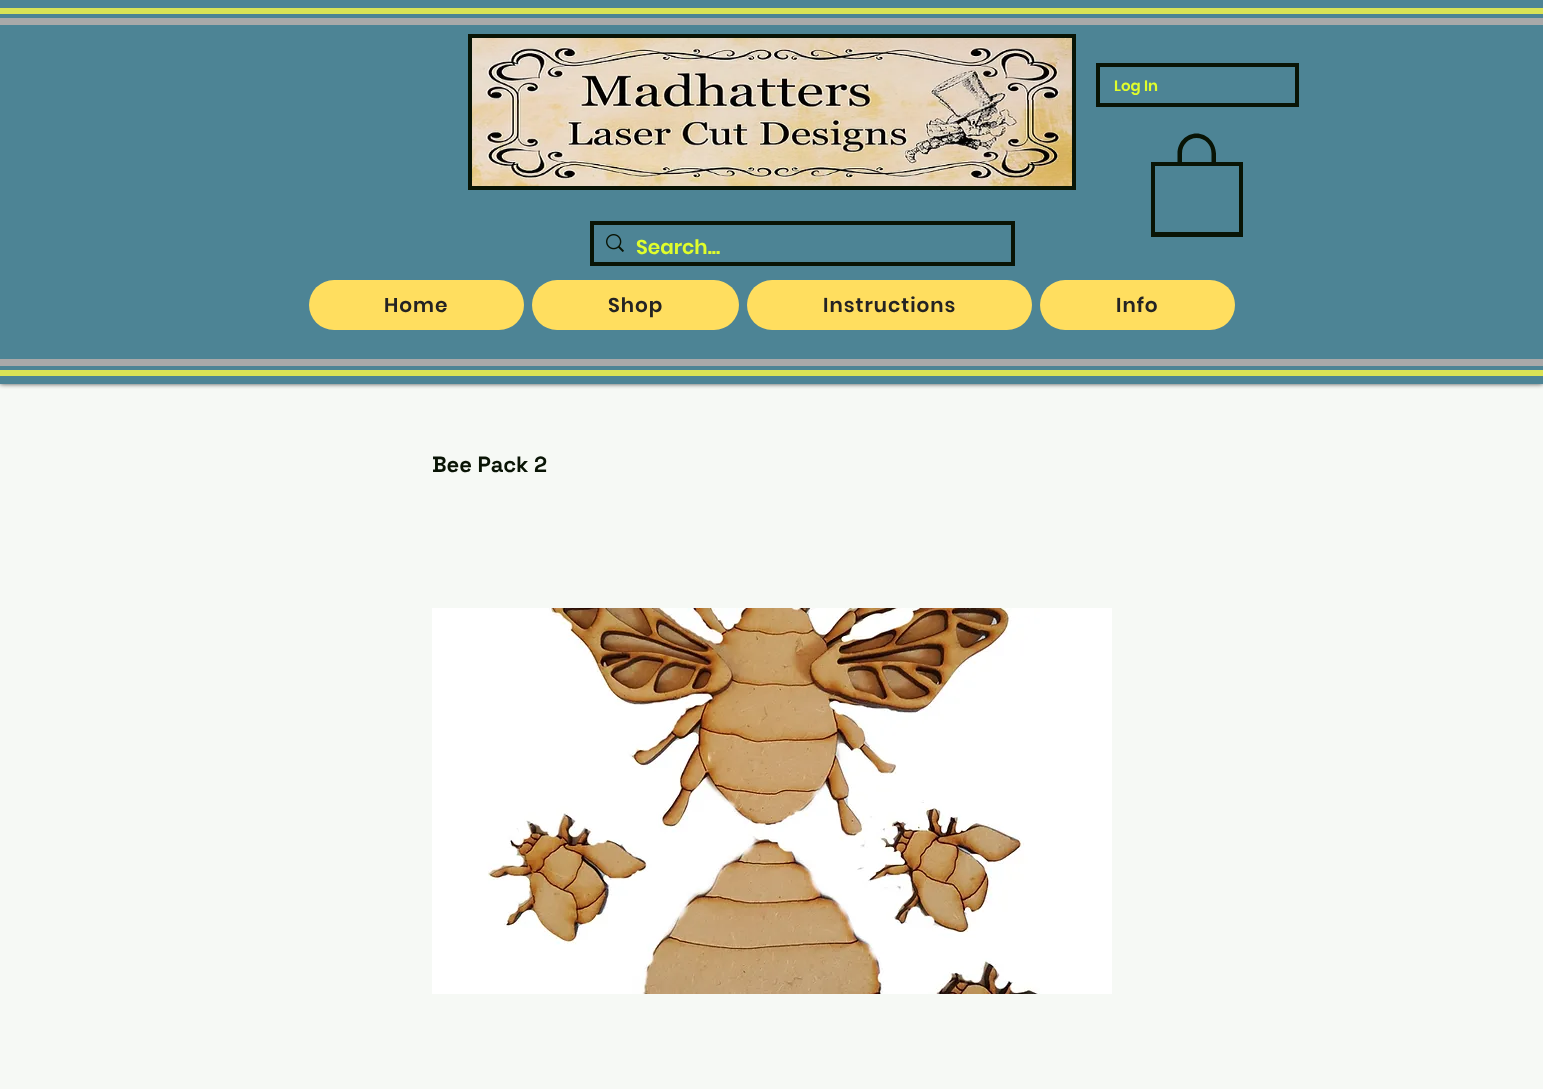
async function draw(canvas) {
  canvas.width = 1543;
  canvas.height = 1089;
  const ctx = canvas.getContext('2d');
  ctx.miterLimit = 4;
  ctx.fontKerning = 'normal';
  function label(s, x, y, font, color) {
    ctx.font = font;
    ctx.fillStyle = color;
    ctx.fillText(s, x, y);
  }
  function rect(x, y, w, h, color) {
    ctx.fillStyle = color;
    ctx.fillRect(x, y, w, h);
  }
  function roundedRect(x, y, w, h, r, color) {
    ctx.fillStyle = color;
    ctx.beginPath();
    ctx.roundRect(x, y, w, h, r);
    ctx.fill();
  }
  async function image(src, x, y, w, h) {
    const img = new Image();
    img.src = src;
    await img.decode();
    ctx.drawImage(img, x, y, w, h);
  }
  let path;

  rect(0, 0, 1543, 1089, '#f6f9f5');
  ctx.fillStyle = '#000000b3';
  ctx.filter = 'blur(2.5px)';
  ctx.beginPath();
  ctx.rect(0, 0, 1543, 384);
  ctx.fill();
  ctx.filter = 'none';
  rect(0, 0, 1543, 384, '#4d8495');
  rect(0, 8, 1543, 6, '#dae356');
  rect(0, 370, 1543, 6, '#dae356');
  rect(0, 18, 1543, 7, '#a9a9a9');
  rect(0, 359, 1543, 7, '#a9a9a9');
  rect(468, 34, 608, 156, '#091405');
  await image('assets/img1.png', 472, 38, 600, 148);
  ctx.strokeStyle = '#091405';
  ctx.lineWidth = 4;
  ctx.strokeRect(1098, 65, 199, 40);
  label('Log In', 1114, 91, '600 15px Poppins', '#e0fd2c');
  ctx.fillStyle = '#091405';
  path = new Path2D('M1196.5 133.5C1186 133.5 1177.5 142.5 1177.5 153.5V163.5H1182V153.5C1182 144.5 1188.5 138 1196.5 138C1205 138 1211.5 144.5 1211.5 153.5V163.5H1215V162.5H1216V153.5C1215.5 142.5 1207 133.5 1196.5 133.5Z');
  ctx.fill(path);
  path = new Path2D('M1239 166V232H1155V166H1239M1243 162H1151V237H1243Z');
  ctx.fill(path);
  ctx.strokeRect(592, 223, 421, 41);
  await image('assets/img2.png', 606, 234, 18, 18);
  label('Search...', 636, 254, '600 20px Poppins', '#e0fd2c');
  roundedRect(309, 280, 215, 50, 25, '#ffde5f');
  ctx.letterSpacing = '1px';
  label('Home', 384, 312, '600 20px Poppins', '#242323');
  roundedRect(532, 280, 207, 50, 25, '#ffde5f');
  label('Shop', 608, 312, '600 20px Poppins', '#242323');
  roundedRect(747, 280, 285, 50, 25, '#ffde5f');
  label('Instructions', 823, 312, '600 20px Poppins', '#242323');
  roundedRect(1040, 280, 195, 50, 25, '#ffde5f');
  label('Info', 1116, 312, '600 20px Poppins', '#242323');
  ctx.letterSpacing = '0px';
  label('Bee Pack 2', 432, 472, 'bold 22px Space Grotesk', '#091405');
  await image('assets/img3.png', 432, 608, 680, 386);
}

draw(document.querySelector('canvas'));
